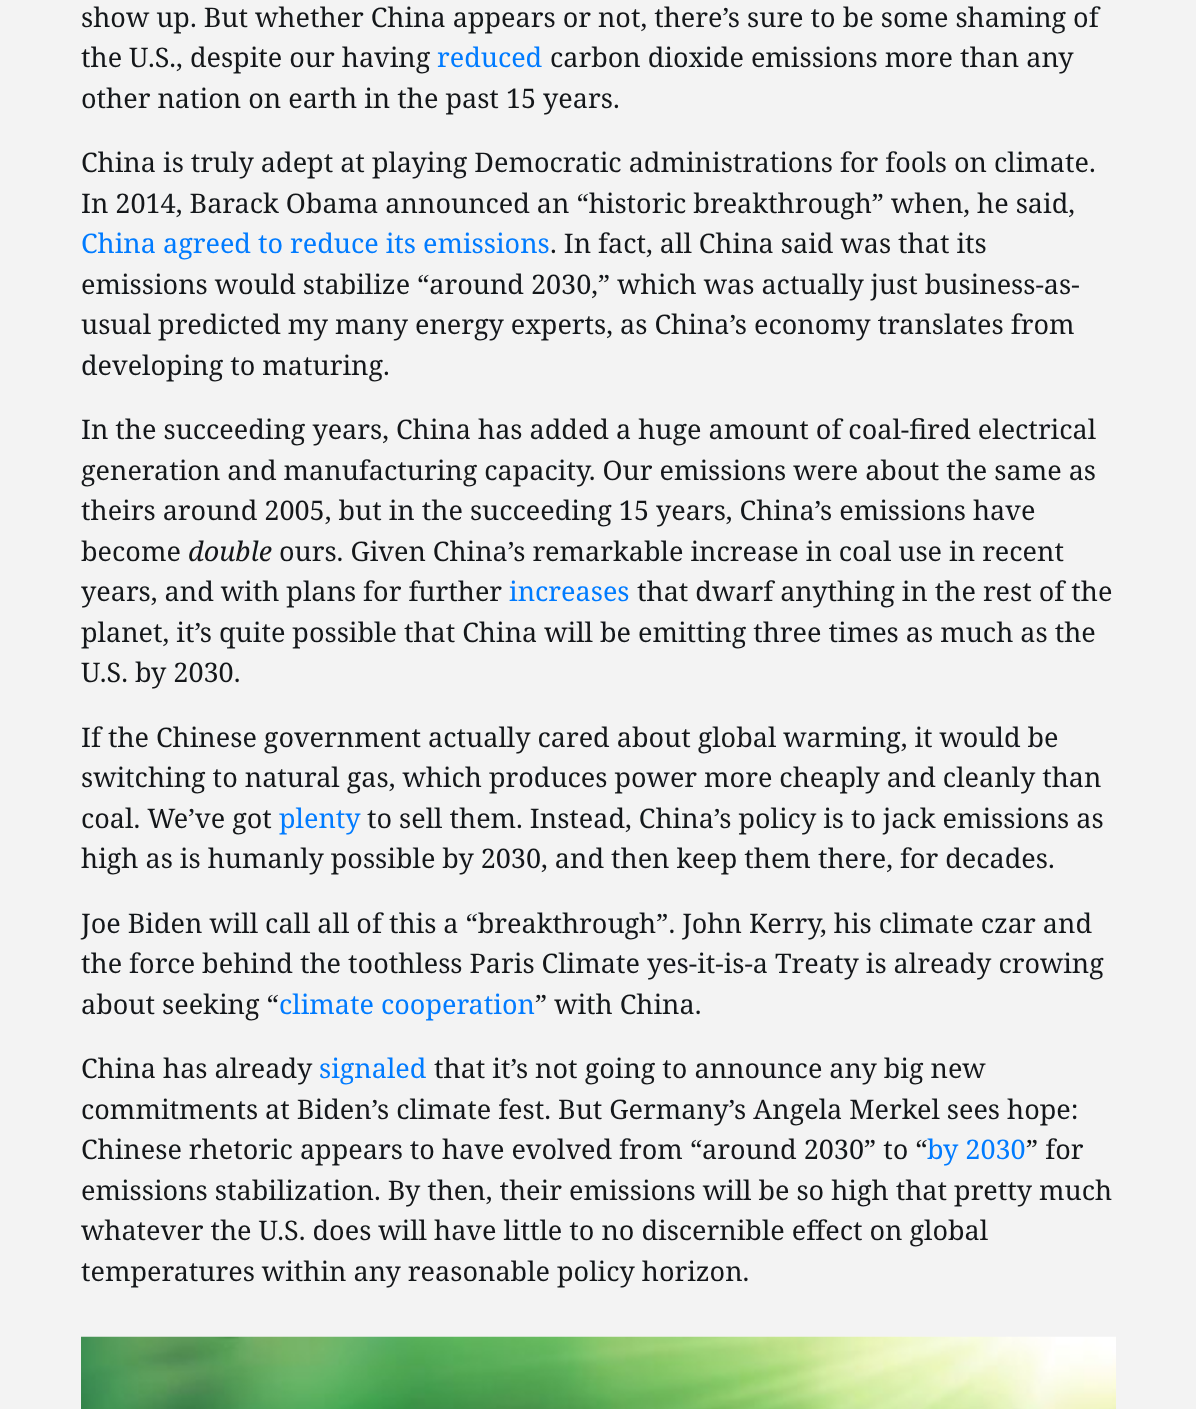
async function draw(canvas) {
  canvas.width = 1196;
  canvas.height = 1409;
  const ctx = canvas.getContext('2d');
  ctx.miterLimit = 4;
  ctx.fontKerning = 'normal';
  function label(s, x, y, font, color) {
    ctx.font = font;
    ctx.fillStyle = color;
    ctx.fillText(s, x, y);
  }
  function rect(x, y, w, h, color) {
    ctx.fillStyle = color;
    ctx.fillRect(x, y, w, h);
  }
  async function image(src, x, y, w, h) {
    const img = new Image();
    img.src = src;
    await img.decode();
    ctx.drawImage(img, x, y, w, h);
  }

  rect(0, 0, 1196, 1409, '#f3f3f3');
  label('show up. But whether China appears or not, there’s sure to be some shaming of', 81, 27, '27px Noto Serif', '#14171a');
  label('the U.S., despite our having', 81, 67, '27px Noto Serif', '#14171a');
  label('reduced', 437, 67, '27px Noto Serif', '#007bff');
  label('carbon dioxide emissions more than any', 550, 67, '27px Noto Serif', '#14171a');
  label('other nation on earth in the past 15 years.', 81, 108, '27px Noto Serif', '#14171a');
  label('China is truly adept at playing Democratic administrations for fools on climate.', 81, 172, '27px Noto Serif', '#14171a');
  label('In 2014, Barack Obama announced an “historic breakthrough” when, he said,', 81, 213, '27px Noto Serif', '#14171a');
  label('China agreed to reduce its emissions', 81, 253, '27px Noto Serif', '#007bff');
  label('. In fact, all China said was that its', 550, 253, '27px Noto Serif', '#14171a');
  label('emissions would stabilize “around 2030,” which was actually just business-as-', 81, 294, '27px Noto Serif', '#14171a');
  label('usual predicted my many energy experts, as China’s economy translates from', 81, 334, '27px Noto Serif', '#14171a');
  label('developing to maturing.', 81, 375, '27px Noto Serif', '#14171a');
  label('In the succeeding years, China has added a huge amount of coal-fired electrical', 81, 439, '27px Noto Serif', '#14171a');
  label('generation and manufacturing capacity. Our emissions were about the same as', 81, 480, '27px Noto Serif', '#14171a');
  label('theirs around 2005, but in the succeeding 15 years, China’s emissions have', 81, 520, '27px Noto Serif', '#14171a');
  label('become', 81, 561, '27px Noto Serif', '#14171a');
  label('double', 188, 561, 'italic 27px Noto Serif', '#14171a');
  label('ours. Given China’s remarkable increase in coal use in recent', 279, 561, '27px Noto Serif', '#14171a');
  label('years, and with plans for further', 81, 601, '27px Noto Serif', '#14171a');
  label('increases', 509, 601, '27px Noto Serif', '#007bff');
  label('that dwarf anything in the rest of the', 637, 601, '27px Noto Serif', '#14171a');
  label('planet, it’s quite possible that China will be emitting three times as much as the', 81, 642, '27px Noto Serif', '#14171a');
  label('U.S. by 2030.', 81, 682, '27px Noto Serif', '#14171a');
  label('If the Chinese government actually cared about global warming, it would be', 81, 747, '27px Noto Serif', '#14171a');
  label('switching to natural gas, which produces power more cheaply and cleanly than', 81, 787, '27px Noto Serif', '#14171a');
  label('coal. We’ve got', 81, 828, '27px Noto Serif', '#14171a');
  label('plenty', 279, 828, '27px Noto Serif', '#007bff');
  label('to sell them. Instead, China’s policy is to jack emissions as', 367, 828, '27px Noto Serif', '#14171a');
  label('high as is humanly possible by 2030, and then keep them there, for decades.', 81, 868, '27px Noto Serif', '#14171a');
  label('Joe Biden will call all of this a “breakthrough”. John Kerry, his climate czar and', 81, 933, '27px Noto Serif', '#14171a');
  label('the force behind the toothless Paris Climate yes-it-is-a Treaty is already crowing', 81, 973, '27px Noto Serif', '#14171a');
  label('about seeking “', 81, 1014, '27px Noto Serif', '#14171a');
  label('climate cooperation', 279, 1014, '27px Noto Serif', '#007bff');
  label('” with China.', 535, 1014, '27px Noto Serif', '#14171a');
  label('China has already', 81, 1078, '27px Noto Serif', '#14171a');
  label('signaled', 319, 1078, '27px Noto Serif', '#007bff');
  label('that it’s not going to announce any big new', 434, 1078, '27px Noto Serif', '#14171a');
  label('commitments at Biden’s climate fest. But Germany’s Angela Merkel sees hope:', 81, 1119, '27px Noto Serif', '#14171a');
  label('Chinese rhetoric appears to have evolved from “around 2030” to “', 81, 1159, '27px Noto Serif', '#14171a');
  label('by 2030', 927, 1159, '27px Noto Serif', '#007bff');
  label('” for', 1026, 1159, '27px Noto Serif', '#14171a');
  label('emissions stabilization. By then, their emissions will be so high that pretty much', 81, 1200, '27px Noto Serif', '#14171a');
  label('whatever the U.S. does will have little to no discernible effect on global', 81, 1240, '27px Noto Serif', '#14171a');
  label('temperatures within any reasonable policy horizon.', 81, 1281, '27px Noto Serif', '#14171a');
  await image('assets/img1.png', 81, 1336, 1035, 73);
}

draw(document.querySelector('canvas'));
